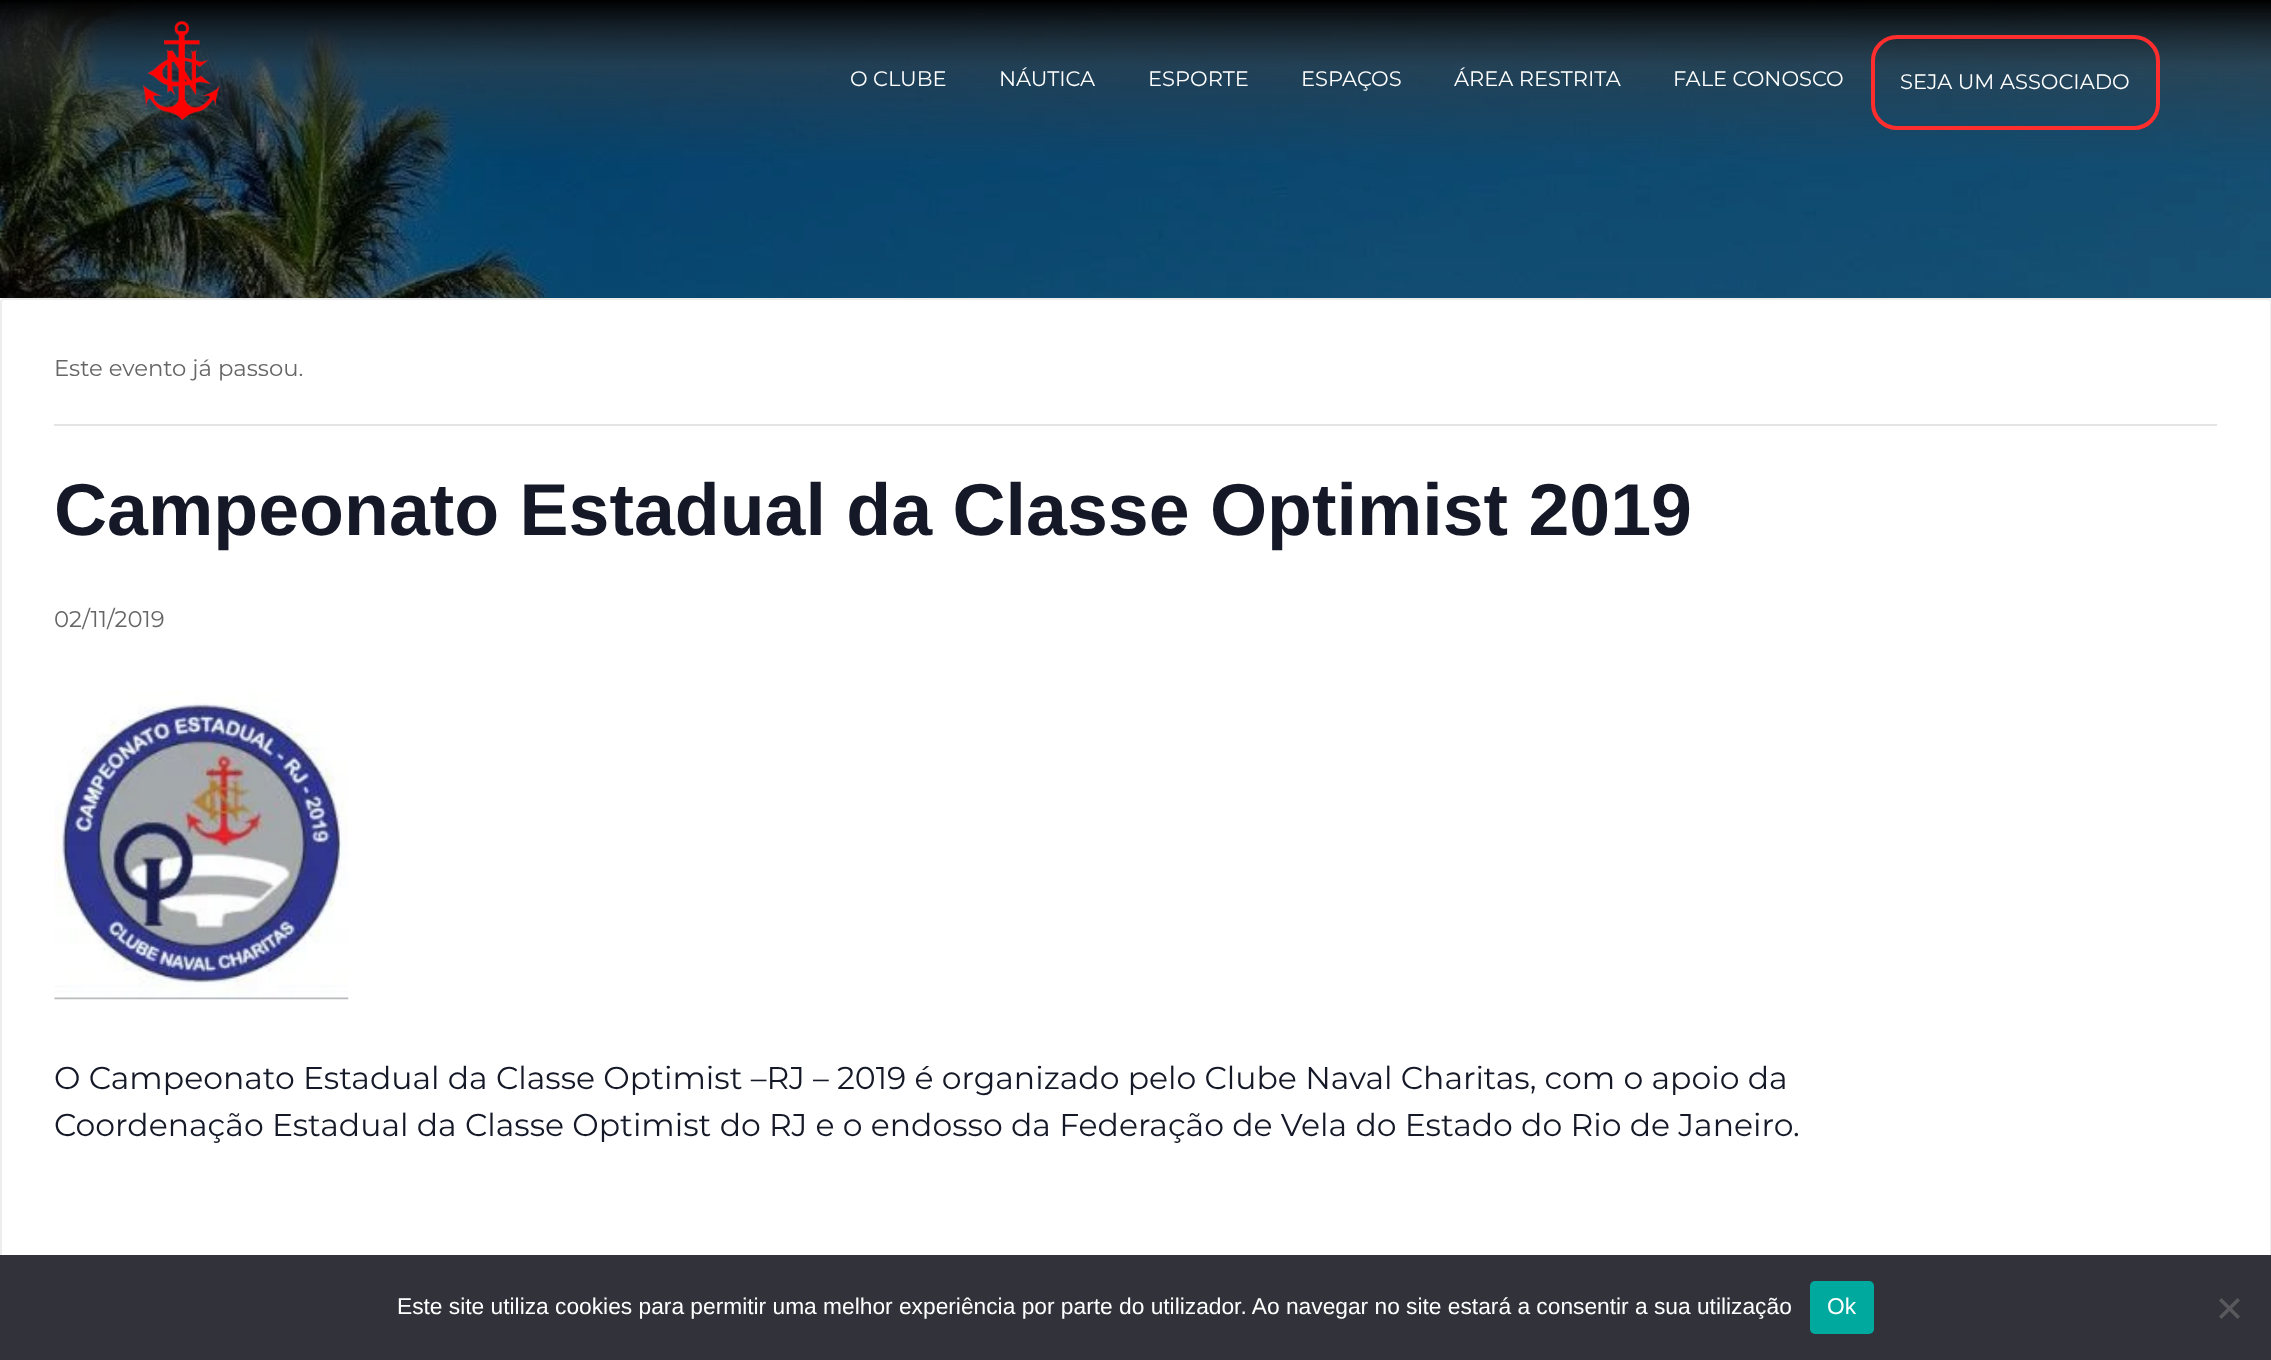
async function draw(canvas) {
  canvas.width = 2271;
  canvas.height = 1360;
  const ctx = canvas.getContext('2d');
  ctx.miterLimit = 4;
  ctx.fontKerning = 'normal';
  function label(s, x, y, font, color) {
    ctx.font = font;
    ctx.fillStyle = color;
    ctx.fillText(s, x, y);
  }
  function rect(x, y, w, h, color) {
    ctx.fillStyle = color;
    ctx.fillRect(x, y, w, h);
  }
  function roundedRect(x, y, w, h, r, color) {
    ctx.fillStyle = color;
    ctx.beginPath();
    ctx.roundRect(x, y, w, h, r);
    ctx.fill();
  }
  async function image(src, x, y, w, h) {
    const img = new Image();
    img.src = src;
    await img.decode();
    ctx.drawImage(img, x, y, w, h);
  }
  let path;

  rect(0, 0, 2271, 1360, '#fff');
  await image('assets/img1.png', 0, 0, 2271, 298);
  await image('assets/img2.png', 143, 20, 78, 100);
  label('O CLUBE', 850, 86, '21px Montserrat', '#fff');
  label('NÁUTICA', 999, 86, '21px Montserrat', '#fff');
  label('ESPORTE', 1148, 86, '21px Montserrat', '#fff');
  label('ESPAÇOS', 1301, 86, '21px Montserrat', '#fff');
  label('ÁREA RESTRITA', 1454, 86, '21px Montserrat', '#fff');
  label('FALE CONOSCO', 1673, 86, '21px Montserrat', '#fff');
  ctx.beginPath();
  ctx.roundRect(1873, 37, 285, 91, 24);
  ctx.strokeStyle = '#fe2e2e';
  ctx.lineWidth = 4;
  ctx.stroke();
  label('SEJA UM ASSOCIADO', 1900, 89, '21px Montserrat', '#fff');
  ctx.beginPath();
  ctx.roundRect(1, 299, 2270, 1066, 3);
  ctx.strokeStyle = '#ededed';
  ctx.lineWidth = 2;
  ctx.stroke();
  rect(54, 424, 2163, 2, '#e4e4e4');
  label('Este evento já passou.', 54, 376, '22.75px Montserrat', '#666');
  label('Campeonato Estadual da Classe Optimist 2019', 54, 535, 'bold 73.5px Liberation Sans', '#141827');
  label('02/11/2019', 54, 627, '22.75px Montserrat', '#666');
  await image('assets/img3.png', 54, 691, 295, 309);
  label('O Campeonato Estadual da Classe Optimist –RJ – 2019 é organizado pelo Clube Naval Charitas, com o apoio da', 54, 1089, '31.5px Montserrat', '#141827');
  label('Coordenação Estadual da Classe Optimist do RJ e o endosso da Federação de Vela do Estado do Rio de Janeiro.', 54, 1136, '31.5px Montserrat', '#141827');
  rect(0, 1255, 2271, 105, '#32323a');
  label('Este site utiliza cookies para permitir uma melhor experiência por parte do utilizador. Ao navegar no site estará a consentir a sua utilização', 397, 1314, '22.75px Liberation Sans', '#fff');
  roundedRect(1810, 1281, 64, 53, 5, '#00a99d');
  label('Ok', 1827, 1314, '22.75px Liberation Sans', '#fff');
  ctx.fillStyle = '#59595d';
  path = new Path2D('M2237.5 1298L2240 1300.5L2221.5 1319L2219 1316.5Z');
  ctx.fill(path);
  path = new Path2D('M2219 1300.5L2221.5 1298L2240 1316.5L2237.5 1319Z');
  ctx.fill(path);
}

draw(document.querySelector('canvas'));
